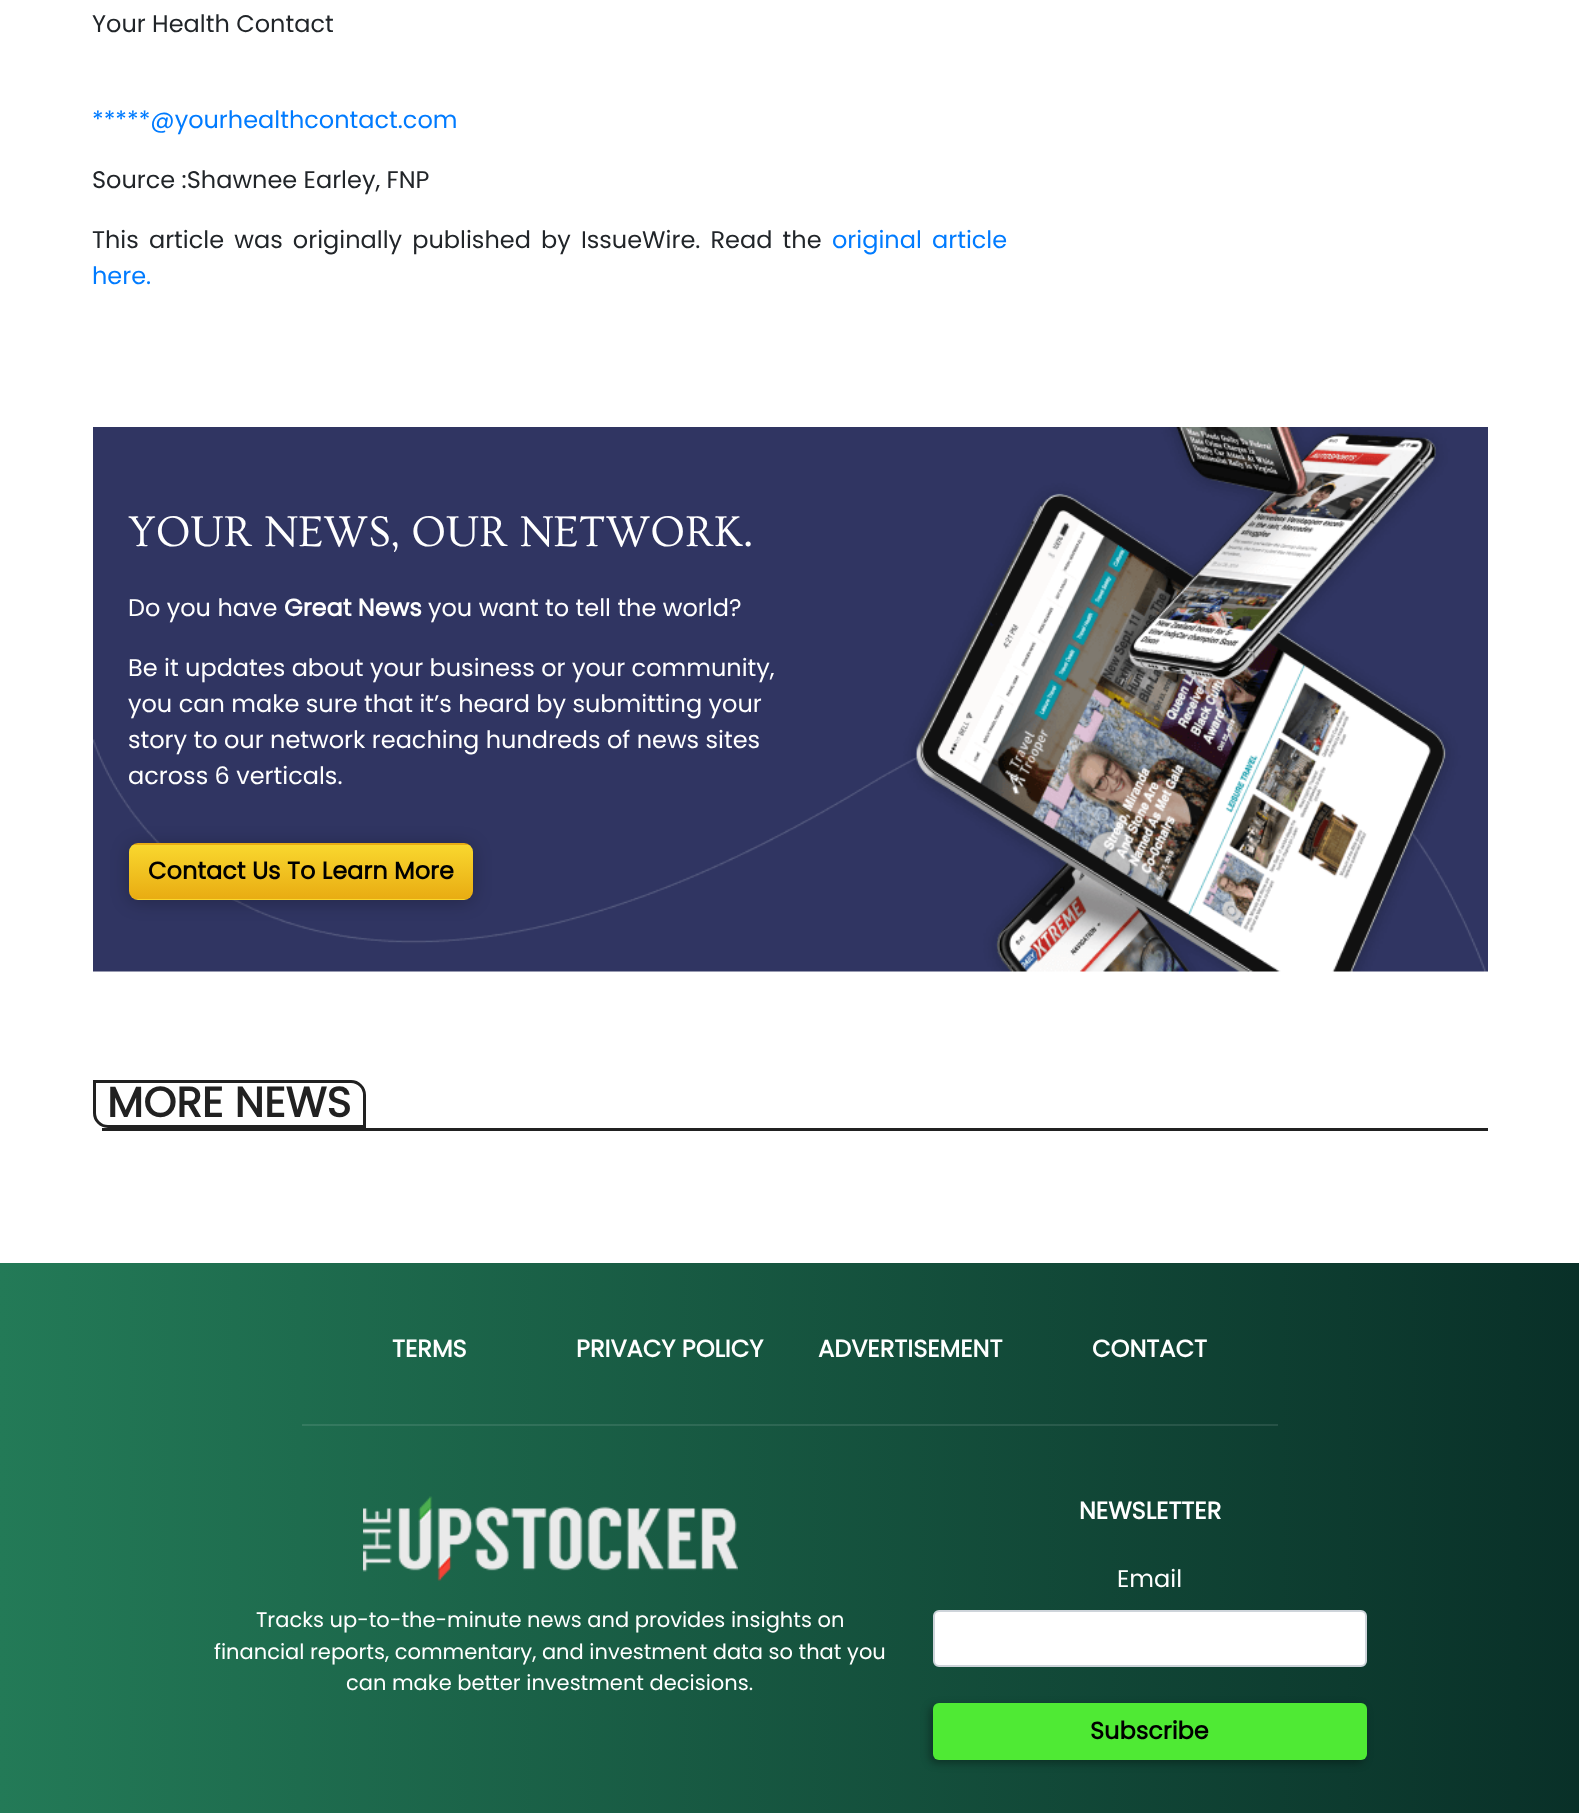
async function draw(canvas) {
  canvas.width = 1579;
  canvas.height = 1813;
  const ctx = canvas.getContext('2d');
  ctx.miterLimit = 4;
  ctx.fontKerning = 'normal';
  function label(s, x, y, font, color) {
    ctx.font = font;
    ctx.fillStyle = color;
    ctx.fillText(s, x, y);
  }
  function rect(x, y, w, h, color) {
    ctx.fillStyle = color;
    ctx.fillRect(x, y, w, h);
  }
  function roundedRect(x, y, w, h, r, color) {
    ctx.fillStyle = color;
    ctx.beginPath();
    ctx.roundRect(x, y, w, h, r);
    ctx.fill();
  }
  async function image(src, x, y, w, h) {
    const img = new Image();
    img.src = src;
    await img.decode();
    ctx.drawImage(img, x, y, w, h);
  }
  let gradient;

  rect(0, 0, 1579, 1813, '#fff');
  label('Your Health Contact', 92, 32, '24px Poppins', '#212529');
  label('*****@yourhealthcontact.com', 92, 128, '24px Poppins', '#007bff');
  label('Source :Shawnee Earley, FNP', 92, 188, '24px Poppins', '#212529');
  ctx.wordSpacing = '3.75px';
  label('This article was originally published by IssueWire. Read the', 92, 248, '24px Poppins', '#212529');
  label('original article', 832, 248, '24px Poppins', '#007bff');
  ctx.wordSpacing = '0px';
  label('here.', 92, 284, '24px Poppins', '#007bff');
  await image('assets/img1.png', 93, 427, 1395, 545);
  label('YOUR NEWS, OUR NETWORK.', 128, 546, '45px Ovo', '#fff');
  label('Do you have', 128, 616, '24px Poppins', '#fff');
  label('Great News', 284, 616, 'bold 24px Poppins', '#fff');
  label('you want to tell the world?', 428, 616, '24px Poppins', '#fff');
  label('Be it updates about your business or your community,', 128, 676, '24px Poppins', '#fff');
  label('you can make sure that it’s heard by submitting your', 128, 712, '24px Poppins', '#fff');
  label('story to our network reaching hundreds of news sites', 128, 748, '24px Poppins', '#fff');
  label('across 6 verticals.', 128, 784, '24px Poppins', '#fff');
  ctx.fillStyle = '#00000040';
  ctx.filter = 'blur(9px)';
  ctx.beginPath();
  ctx.roundRect(129, 845, 344, 57, 9);
  ctx.fill();
  ctx.filter = 'none';
  ctx.save();
  ctx.beginPath();
  ctx.roundRect(129, 843, 344, 57, 9);
  ctx.clip();
  gradient = ctx.createLinearGradient(301, 789, 301, 846);
  gradient.addColorStop(0.02, '#f9d82f');
  gradient.addColorStop(0.96, '#e9ad13');
  ctx.fillStyle = gradient;
  ctx.fillRect(131, 843, 340, 2);
  gradient = ctx.createLinearGradient(-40, 843, -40, 900);
  gradient.addColorStop(0.02, '#f9d82f');
  gradient.addColorStop(0.96, '#e9ad13');
  ctx.fillStyle = gradient;
  ctx.fillRect(129, 845, 2, 54);
  gradient = ctx.createLinearGradient(301, 843, 301, 900);
  gradient.addColorStop(0.02, '#f9d82f');
  gradient.addColorStop(0.96, '#e9ad13');
  ctx.fillStyle = gradient;
  ctx.fillRect(131, 845, 340, 54);
  gradient = ctx.createLinearGradient(641, 843, 641, 900);
  gradient.addColorStop(0.02, '#f9d82f');
  gradient.addColorStop(0.96, '#e9ad13');
  ctx.fillStyle = gradient;
  ctx.fillRect(471, 845, 2, 54);
  gradient = ctx.createLinearGradient(301, 897, 301, 954);
  gradient.addColorStop(0.02, '#f9d82f');
  gradient.addColorStop(0.96, '#e9ad13');
  ctx.fillStyle = gradient;
  ctx.fillRect(131, 899, 340, 1);
  ctx.restore();
  label('Contact Us To Learn More', 148, 879, 'bold 24px Poppins', '#000');
  rect(102, 1128, 1386, 3, '#212121');
  ctx.beginPath();
  ctx.roundRect(94.5, 1081.5, 270, 45, [0, 13.5, 0, 13.5]);
  ctx.strokeStyle = '#212121';
  ctx.lineWidth = 3;
  ctx.stroke();
  label('MORE NEWS', 107, 1117, 'bold 42px Poppins', '#212121');
  gradient = ctx.createLinearGradient(0, 1569, 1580, 1569);
  gradient.addColorStop(0, '#237a57');
  gradient.addColorStop(1, '#093028');
  ctx.fillStyle = gradient;
  ctx.fillRect(0, 1263, 1579, 550);
  gradient = ctx.createLinearGradient(0, 1569, 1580, 1569);
  gradient.addColorStop(0, '#398768');
  gradient.addColorStop(1, '#22453e');
  ctx.fillStyle = gradient;
  ctx.fillRect(302, 1424, 976, 2);
  label('TERMS', 392, 1357, 'bold 24px Poppins', '#fff');
  label('PRIVACY POLICY', 576, 1357, 'bold 24px Poppins', '#fff');
  label('ADVERTISEMENT', 818, 1357, 'bold 24px Poppins', '#fff');
  label('CONTACT', 1092, 1357, 'bold 24px Poppins', '#fff');
  await image('assets/img2.png', 363, 1496, 375, 85);
  label('Tracks up-to-the-minute news and provides insights on', 256, 1627, '21px Poppins', '#fff');
  label('financial reports, commentary, and investment data so that you', 214, 1659, '21px Poppins', '#fff');
  label('can make better investment decisions.', 346, 1690, '21px Poppins', '#fff');
  label('NEWSLETTER', 1079, 1519, 'bold 24px Poppins', '#fff');
  label('Email', 1117, 1587, '24px Poppins', '#fff');
  ctx.beginPath();
  ctx.roundRect(934, 1611, 432, 55, 5);
  ctx.fill();
  ctx.strokeStyle = '#ced4da';
  ctx.lineWidth = 2;
  ctx.stroke();
  ctx.fillStyle = '#00000059';
  ctx.filter = 'blur(4px)';
  ctx.beginPath();
  ctx.roundRect(930, 1706, 434, 57, 6);
  ctx.fill();
  ctx.filter = 'none';
  roundedRect(933, 1703, 434, 57, 6, '#4fea34');
  label('Subscribe', 1090, 1739, 'bold 24px Poppins', '#000');
}

draw(document.querySelector('canvas'));
